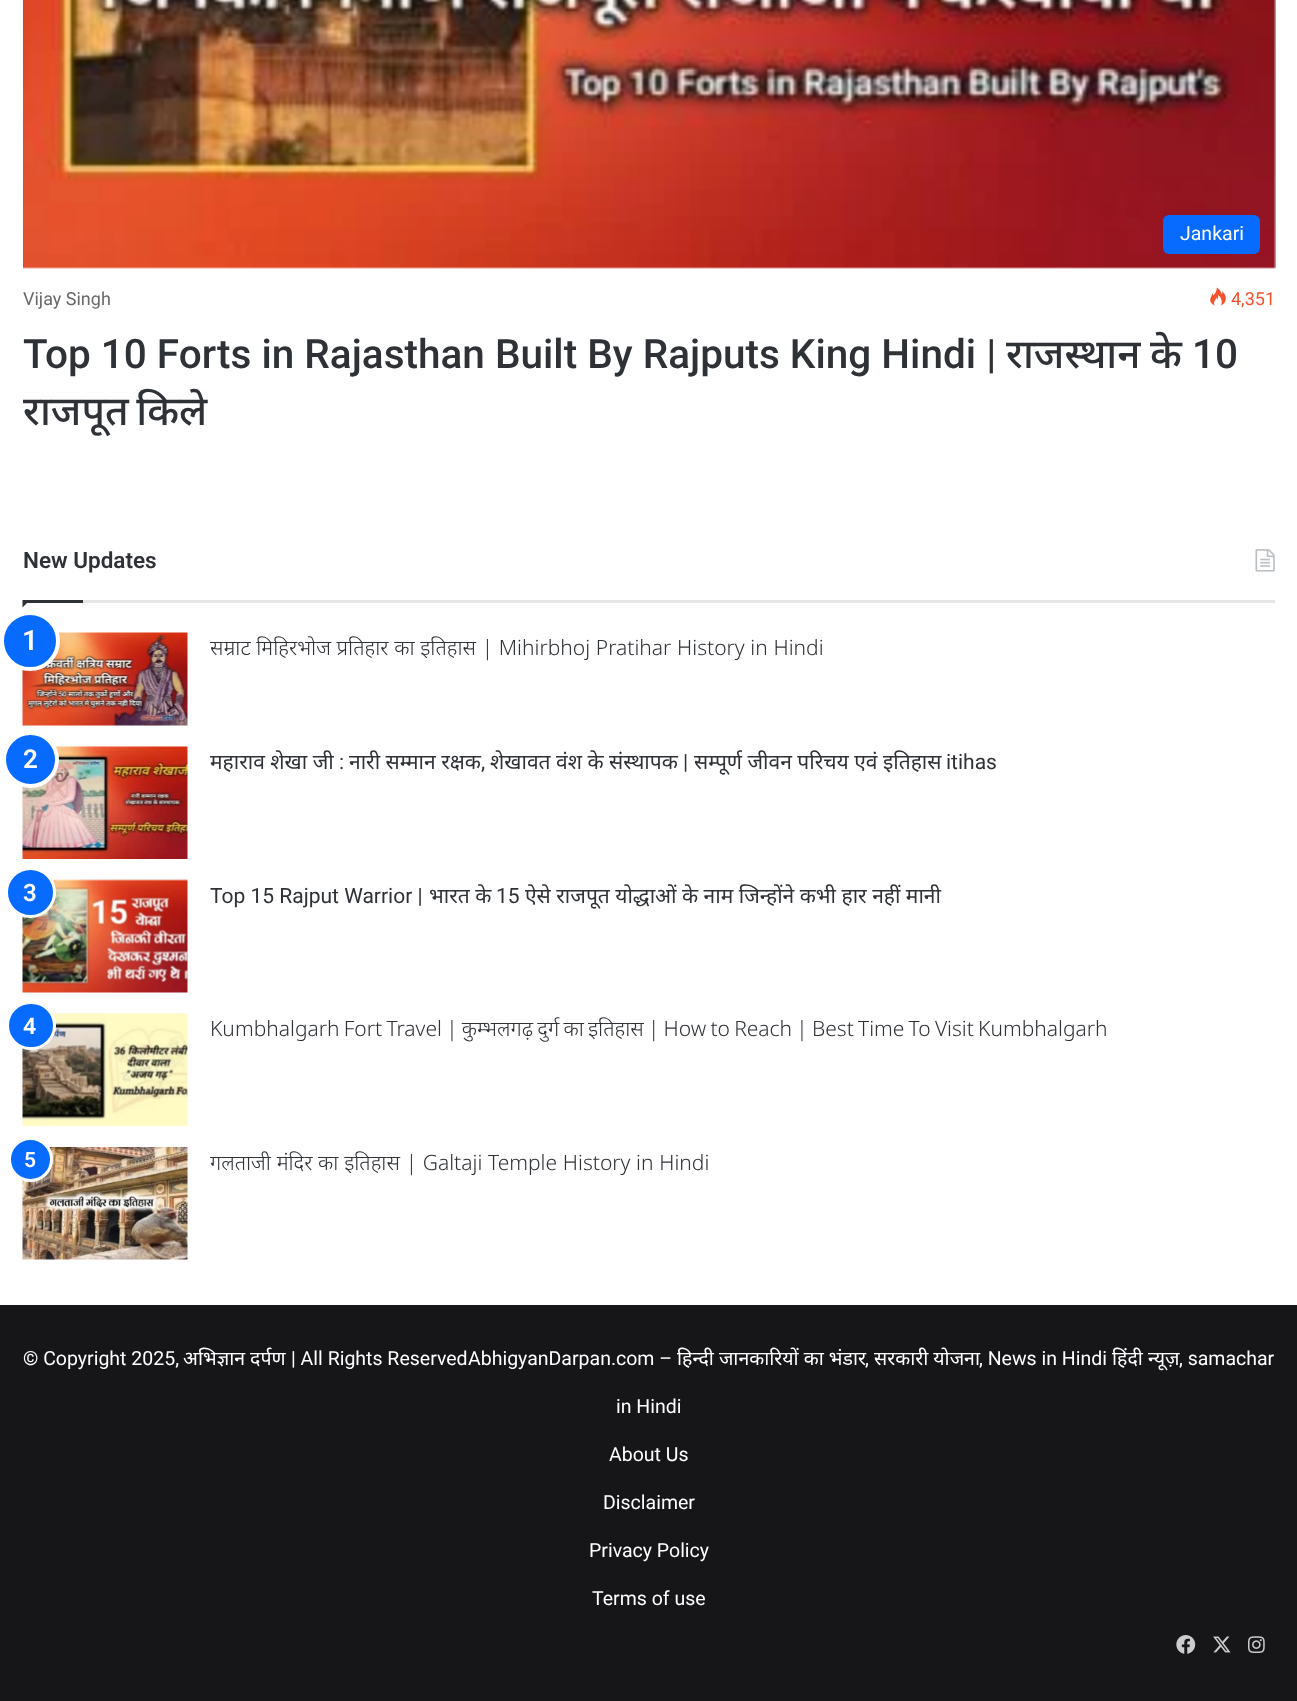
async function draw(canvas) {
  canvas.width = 1297;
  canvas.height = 1701;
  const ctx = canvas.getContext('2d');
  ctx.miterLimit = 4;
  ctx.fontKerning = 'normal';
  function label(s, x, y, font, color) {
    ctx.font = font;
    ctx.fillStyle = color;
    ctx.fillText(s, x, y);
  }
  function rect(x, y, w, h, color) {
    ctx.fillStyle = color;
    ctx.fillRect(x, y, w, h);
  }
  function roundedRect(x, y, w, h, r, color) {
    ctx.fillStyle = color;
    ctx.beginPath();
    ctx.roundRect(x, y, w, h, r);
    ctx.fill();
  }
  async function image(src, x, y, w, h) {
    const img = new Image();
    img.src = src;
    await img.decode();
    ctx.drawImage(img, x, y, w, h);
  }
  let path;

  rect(0, 0, 1297, 1701, '#fff');
  await image('assets/img1.png', 23, 0, 1253, 269);
  roundedRect(1163, 215, 97, 39, 6, '#086bff');
  label('Jankari', 1180, 240, '19.5px Roboto', '#fff');
  label('Vijay Singh', 23, 305, '18px Roboto', '#686868');
  await image('assets/img2.png', 1210, 287, 16, 19);
  label('4,351', 1231, 305, '18px Roboto', '#f3522c');
  label('Top 10 Forts in Rajasthan Built By Rajputs King Hindi |', 23, 368, '500 40.5px Roboto', '#2e3136');
  label('राजस्थान', 1006, 368, '500 40.5px Noto Sans', '#2e3136');
  label('के', 1150, 368, '500 40.5px Noto Sans', '#2e3136');
  label('10', 1192, 368, '500 40.5px Roboto', '#2e3136');
  ctx.wordSpacing = '-3px';
  label('राजपूत किले', 23, 425, '500 40.5px Noto Sans', '#2e3136');
  rect(83, 600, 1192, 3, '#e6e6e6');
  ctx.wordSpacing = '0px';
  label('New Updates', 23, 568, '600 22.5px Roboto', '#2e3136');
  await image('assets/img3.png', 1255, 549, 20, 23);
  path = new Path2D('M22.5 600H30L22.5 607.5Z');
  ctx.fill(path);
  rect(23, 600, 60, 3, '#2e3136');
  await image('assets/img4.png', 22, 632, 166, 94);
  ctx.fillStyle = '#086bff';
  ctx.beginPath();
  ctx.arc(30, 641, 28, 0, 2 * Math.PI);
  ctx.fill();
  ctx.strokeStyle = '#fff';
  ctx.lineWidth = 4;
  ctx.stroke();
  label('1', 22, 650, '600 28px Roboto', '#fff');
  ctx.wordSpacing = '0.25px';
  label('सम्राट मिहिरभोज प्रतिहार का इतिहास | Mihirbhoj Pratihar History in Hindi', 210, 655, '300 21px Noto Sans', '#2e3136');
  await image('assets/img5.png', 22, 746, 166, 113);
  ctx.fillStyle = '#086bff';
  ctx.beginPath();
  ctx.arc(30.5, 759.5, 26.5, 0, 2 * Math.PI);
  ctx.fill();
  ctx.stroke();
  ctx.wordSpacing = '0px';
  label('2', 23, 768, '600 26px Roboto', '#fff');
  label('महाराव शेखा जी', 210, 769, '21px Noto Sans', '#2e3136');
  label(':', 339, 769, '21px Roboto', '#2e3136');
  label('नारी सम्मान रक्षक', 349, 769, '21px Noto Sans', '#2e3136');
  label(',', 481, 769, '21px Roboto', '#2e3136');
  label('शेखावत वंश के संस्थापक', 490, 769, '21px Noto Sans', '#2e3136');
  label('|', 683, 769, '21px Roboto', '#2e3136');
  label('सम्पूर्ण जीवन परिचय एवं इतिहास', 694, 769, '21px Noto Sans', '#2e3136');
  label('itihas', 946, 769, '21px Roboto', '#2e3136');
  await image('assets/img6.png', 22, 879, 166, 114);
  ctx.fillStyle = '#086bff';
  ctx.beginPath();
  ctx.arc(30.5, 892.5, 24, 0, 2 * Math.PI);
  ctx.fill();
  ctx.lineWidth = 3;
  ctx.stroke();
  label('3', 23, 901, '600 24px Roboto', '#fff');
  label('Top 15 Rajput Warrior |', 210, 903, '21px Roboto', '#2e3136');
  label('भारत के', 429, 903, '21px Noto Sans', '#2e3136');
  label('15', 496, 903, '21px Roboto', '#2e3136');
  label('ऐसे राजपूत योद्धाओं के नाम जिन्होंने कभी हार नहीं मानी', 525, 903, '21px Noto Sans', '#2e3136');
  await image('assets/img7.png', 22, 1013, 166, 114);
  ctx.fillStyle = '#086bff';
  ctx.beginPath();
  ctx.roundRect(7.5, 1002.5, 47, 46, 23);
  ctx.fill();
  ctx.stroke();
  label('4', 23, 1034, '600 23px Roboto', '#fff');
  ctx.wordSpacing = '-1.25px';
  label('Kumbhalgarh Fort Travel | कुम्भलगढ़ दुर्ग का इतिहास | How to Reach | Best Time To Visit Kumbhalgarh', 210, 1036, '300 21px Noto Sans', '#2e3136');
  await image('assets/img8.png', 22, 1147, 166, 113);
  ctx.wordSpacing = '0.25px';
  label('गलताजी मंदिर का इतिहास | Galtaji Temple History in Hindi', 210, 1170, '300 21px Noto Sans', '#2e3136');
  ctx.fillStyle = '#086bff';
  ctx.beginPath();
  ctx.arc(30.5, 1159.5, 21, 0, 2 * Math.PI);
  ctx.fill();
  ctx.stroke();
  ctx.wordSpacing = '0px';
  label('5', 24, 1167, '600 21px Roboto', '#fff');
  rect(0, 1305, 1297, 396, '#161619');
  label('© Copyright 2025,', 23, 1365, '19.5px Roboto', '#fff');
  label('अभिज्ञान दर्पण', 183, 1365, '19.5px Noto Sans', '#fff');
  label('| All Rights Reserved', 291, 1365, '19.5px Roboto', '#fff');
  label('AbhigyanDarpan.com –', 468, 1365, '19.5px Roboto', '#fff');
  label('हिन्दी जानकारियों का भंडार', 677, 1365, '19.5px Noto Sans', '#fff');
  label(',', 865, 1365, '19.5px Roboto', '#fff');
  label('सरकारी योजना', 874, 1365, '19.5px Noto Sans', '#fff');
  label(', News in Hindi', 979, 1365, '19.5px Roboto', '#fff');
  label('हिंदी न्यूज़', 1112, 1365, '19.5px Noto Sans', '#fff');
  label(', samachar', 1179, 1365, '19.5px Roboto', '#fff');
  label('in Hindi', 616, 1413, '19.5px Roboto', '#fff');
  label('About Us', 609, 1461, '19.5px Roboto', '#fff');
  label('Disclaimer', 603, 1509, '19.5px Roboto', '#fff');
  label('Privacy Policy', 589, 1557, '19.5px Roboto', '#fff');
  label('Terms of use', 592, 1605, '19.5px Roboto', '#fff');
  await image('assets/img9.png', 1176, 1635, 20, 19);
  await image('assets/img10.png', 1213, 1636, 18, 17);
  await image('assets/img11.png', 1248, 1636, 17, 17);
}

draw(document.querySelector('canvas'));
